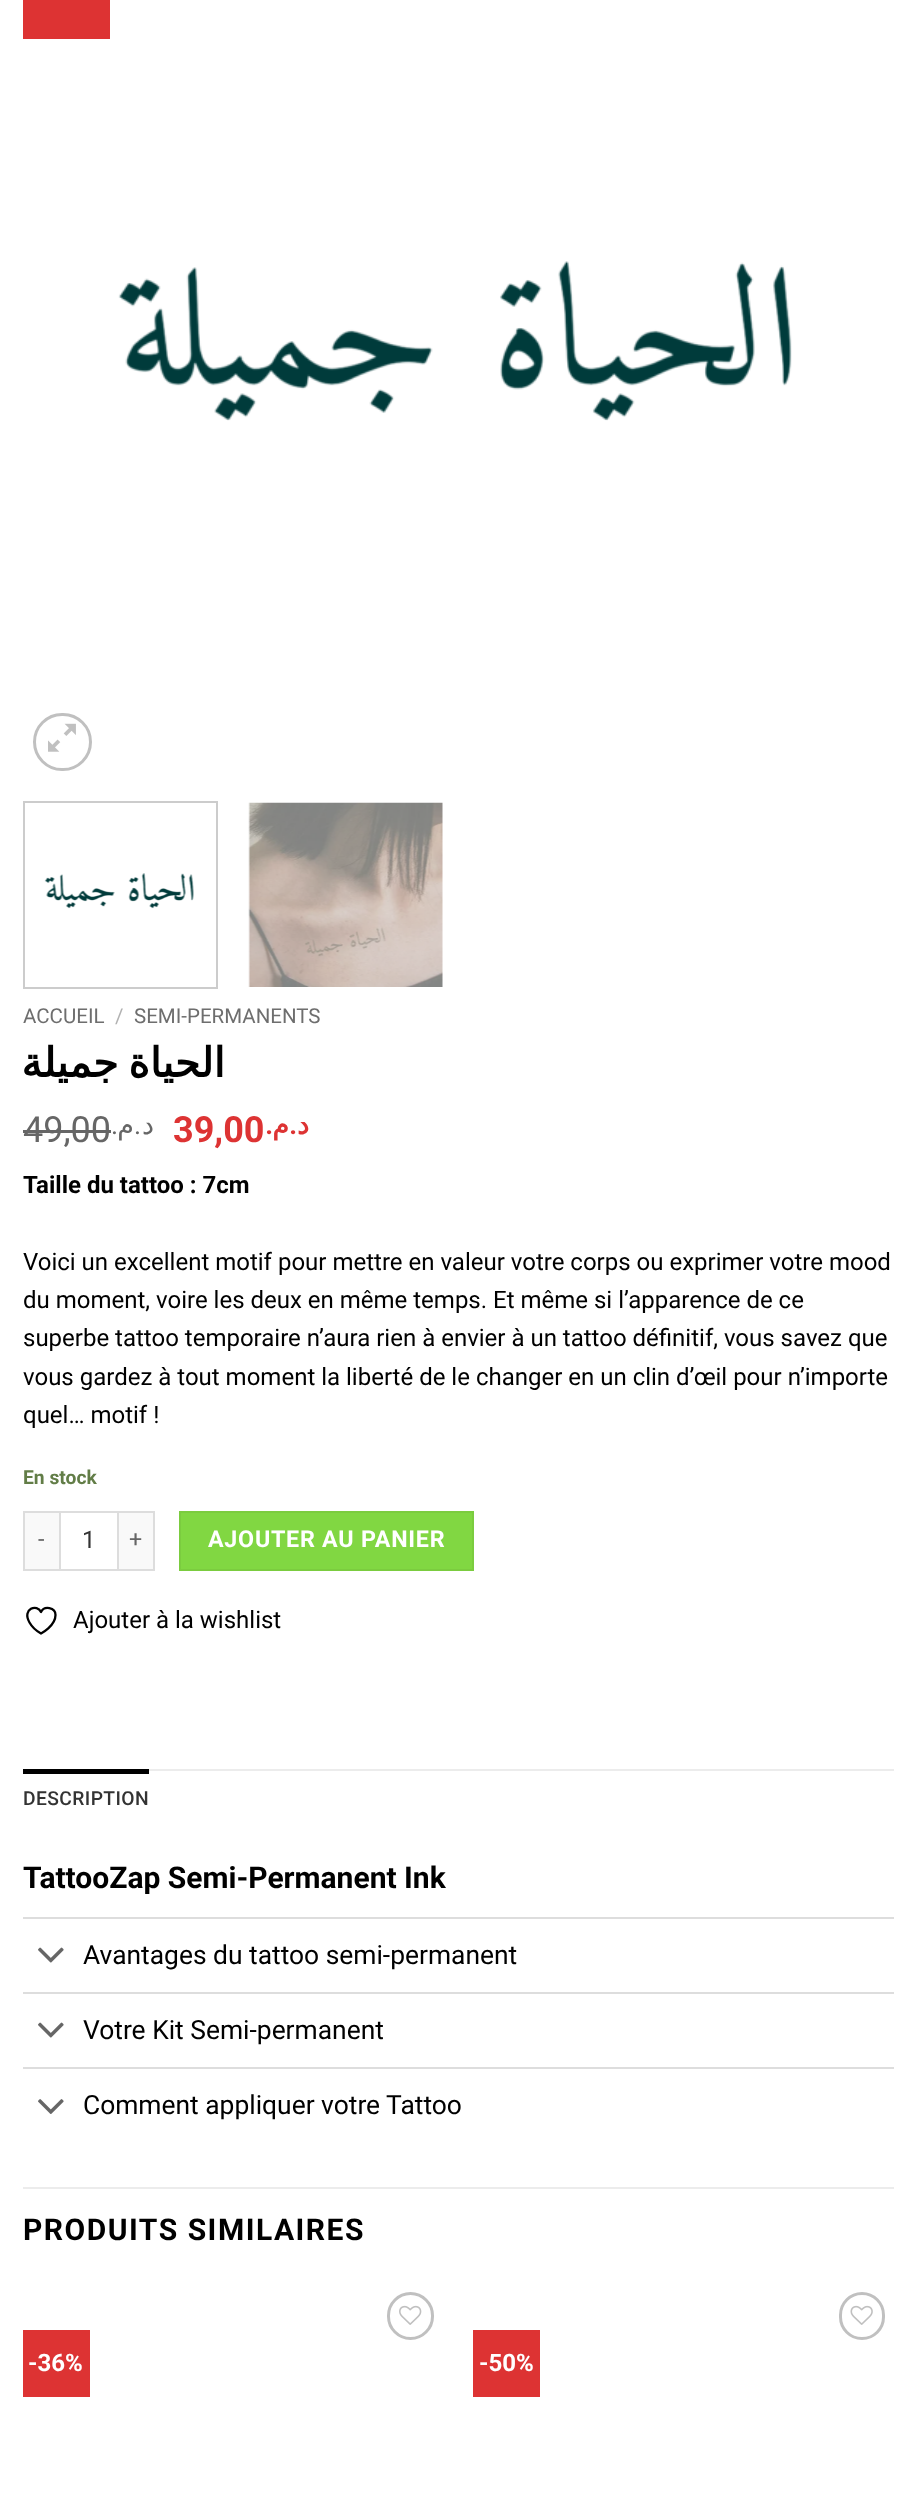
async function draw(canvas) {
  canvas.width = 916;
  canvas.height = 2497;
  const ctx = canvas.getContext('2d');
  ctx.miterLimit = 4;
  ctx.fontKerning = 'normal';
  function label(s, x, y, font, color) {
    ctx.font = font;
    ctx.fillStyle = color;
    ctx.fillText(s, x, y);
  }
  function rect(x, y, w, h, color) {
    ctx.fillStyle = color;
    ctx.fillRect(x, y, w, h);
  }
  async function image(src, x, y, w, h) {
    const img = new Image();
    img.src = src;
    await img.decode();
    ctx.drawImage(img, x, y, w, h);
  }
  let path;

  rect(0, 0, 916, 2497, '#fff');
  rect(23, 0, 87, 39, '#d33');
  await image('assets/img1.png', 118, 261, 674, 160);
  ctx.beginPath();
  ctx.roundRect(34.5, 714.5, 56, 55, 27.5);
  ctx.strokeStyle = '#c0c0c0';
  ctx.lineWidth = 3;
  ctx.stroke();
  await image('assets/img2.png', 48, 723, 28, 29);
  ctx.strokeStyle = '#ccc';
  ctx.lineWidth = 2;
  ctx.strokeRect(24, 802, 193, 186);
  await image('assets/img3.png', 44, 873, 150, 36);
  await image('assets/img4.png', 248, 802, 195, 185);
  label('ACCUEIL', 23, 1023, '20.5px Roboto', '#6e6e6e');
  label('/', 115, 1023, '20.5px Roboto', '#b2b2b2');
  label('SEMI-PERMANENTS', 134, 1023, '20.5px Roboto', '#6e6e6e');
  ctx.wordSpacing = '-3px';
  ctx.direction = 'rtl';
  label('الحياة جميلة', 225, 1077, 'bold 41px DejaVu Sans', '#000');
  ctx.wordSpacing = '0px';
  ctx.direction = 'ltr';
  label('49,00', 23, 1142, '36px Roboto', '#666');
  rect(23, 1130, 88, 3, '#666');
  ctx.direction = 'rtl';
  label('.', 118, 1134, '27px Roboto', '#666');
  label('م', 134, 1134, '27px DejaVu Sans', '#666');
  label('.', 141, 1134, '27px Roboto', '#666');
  label('د', 154, 1134, '27px DejaVu Sans', '#666');
  ctx.direction = 'ltr';
  label('39,00', 173, 1142, 'bold 36px Roboto', '#d33');
  ctx.direction = 'rtl';
  label('.', 273, 1134, 'bold 27px Roboto', '#d33');
  label('م', 289, 1134, 'bold 27px DejaVu Sans', '#d33');
  label('.', 297, 1134, 'bold 27px Roboto', '#d33');
  label('د', 309, 1134, 'bold 27px DejaVu Sans', '#d33');
  ctx.direction = 'ltr';
  label('Taille du tattoo : 7cm', 23, 1193, 'bold 24px Roboto', '#000');
  label('Voici un excellent motif pour mettre en valeur votre corps ou exprimer votre mood', 23, 1270, '24px Roboto', '#000');
  label('du moment, voire les deux en même temps. Et même si l’apparence de ce', 23, 1308, '24px Roboto', '#000');
  label('superbe tattoo temporaire n’aura rien à envier à un tattoo définitif, vous savez que', 23, 1346, '24px Roboto', '#000');
  label('vous gardez à tout moment la liberté de le changer en un clin d’œil pour n’importe', 23, 1385, '24px Roboto', '#000');
  label('quel… motif !', 23, 1423, '24px Roboto', '#000');
  label('En stock', 23, 1484, 'bold 19.25px Roboto', '#627d47');
  rect(25, 1513, 34, 56, '#f9f9f9');
  rect(23, 1511, 36, 2, '#ddd');
  rect(23, 1569, 36, 2, '#ddd');
  rect(23, 1511, 2, 60, '#ddd');
  ctx.letterSpacing = '0.75px';
  label('-', 38, 1547, '23.25px Roboto', '#666');
  ctx.strokeStyle = '#ddd';
  ctx.strokeRect(60, 1512, 58, 58);
  ctx.letterSpacing = '0px';
  label('1', 82, 1548, '24px Roboto', '#333');
  rect(119, 1513, 34, 56, '#f9f9f9');
  rect(119, 1511, 36, 2, '#ddd');
  rect(153, 1511, 2, 60, '#ddd');
  rect(119, 1569, 36, 2, '#ddd');
  ctx.letterSpacing = '0.75px';
  label('+', 129, 1547, '23.25px Roboto', '#666');
  ctx.fillStyle = '#81d742';
  ctx.beginPath();
  ctx.rect(180, 1512, 293, 58);
  ctx.fill();
  ctx.strokeStyle = '#7bcc3f';
  ctx.stroke();
  label('AJOUTER AU PANIER', 208, 1547, 'bold 23.25px Roboto', '#fff');
  ctx.letterSpacing = '0px';
  label('Ajouter à la wishlist', 73, 1628, '24px Roboto', '#000');
  path = new Path2D('M55.5 1615C55.5 1607 44 1605.5 41 1612C37.5 1603.5 21.5 1608.5 29.5 1622.5C32 1627 36.5 1631 41 1633.5C41 1633.5 55.5 1626 55.5 1615Z');
  ctx.strokeStyle = '#000';
  ctx.lineWidth = 2.3;
  ctx.lineCap = 'round';
  ctx.lineJoin = 'round';
  ctx.stroke(path);
  rect(149, 1769, 745, 2, '#ececec');
  rect(23, 1769, 126, 5, '#000');
  ctx.letterSpacing = '0.4px';
  label('DESCRIPTION', 23, 1805, '500 19.25px Roboto', '#333');
  ctx.letterSpacing = '0px';
  label('TattooZap Semi-Permanent Ink', 23, 1888, 'bold 30px Roboto', '#000');
  rect(23, 1917, 871, 2, '#ddd');
  await image('assets/img5.png', 38, 1947, 26, 16);
  label('Avantages du tattoo semi-permanent', 83, 1964, '26.4px Roboto', '#000');
  rect(23, 1992, 871, 2, '#ddd');
  await image('assets/img5.png', 38, 2022, 26, 16);
  label('Votre Kit Semi-permanent', 83, 2039, '26.4px Roboto', '#000');
  rect(23, 2067, 871, 2, '#ddd');
  await image('assets/img6.png', 38, 2099, 26, 15);
  label('Comment appliquer votre Tattoo', 83, 2114, '26.4px Roboto', '#000');
  rect(23, 2187, 871, 2, '#ececec');
  ctx.letterSpacing = '1.5px';
  label('PRODUITS SIMILAIRES', 23, 2240, 'bold 30px Roboto', '#000');
  ctx.beginPath();
  ctx.roundRect(388.5, 2293.5, 44, 45, 22);
  ctx.strokeStyle = '#c0c0c0';
  ctx.lineWidth = 3;
  ctx.lineJoin = 'miter';
  ctx.stroke();
  await image('assets/img7.png', 399, 2305, 23, 20);
  rect(23, 2330, 67, 67, '#d33');
  ctx.letterSpacing = '0px';
  label('-36%', 28, 2371, 'bold 24px Roboto', '#fff');
  ctx.beginPath();
  ctx.roundRect(840.5, 2293.5, 43, 45, 21.5);
  ctx.stroke();
  await image('assets/img8.png', 850, 2305, 23, 20);
  rect(473, 2330, 67, 67, '#d33');
  label('-50%', 479, 2371, 'bold 24px Roboto', '#fff');
}

draw(document.querySelector('canvas'));
